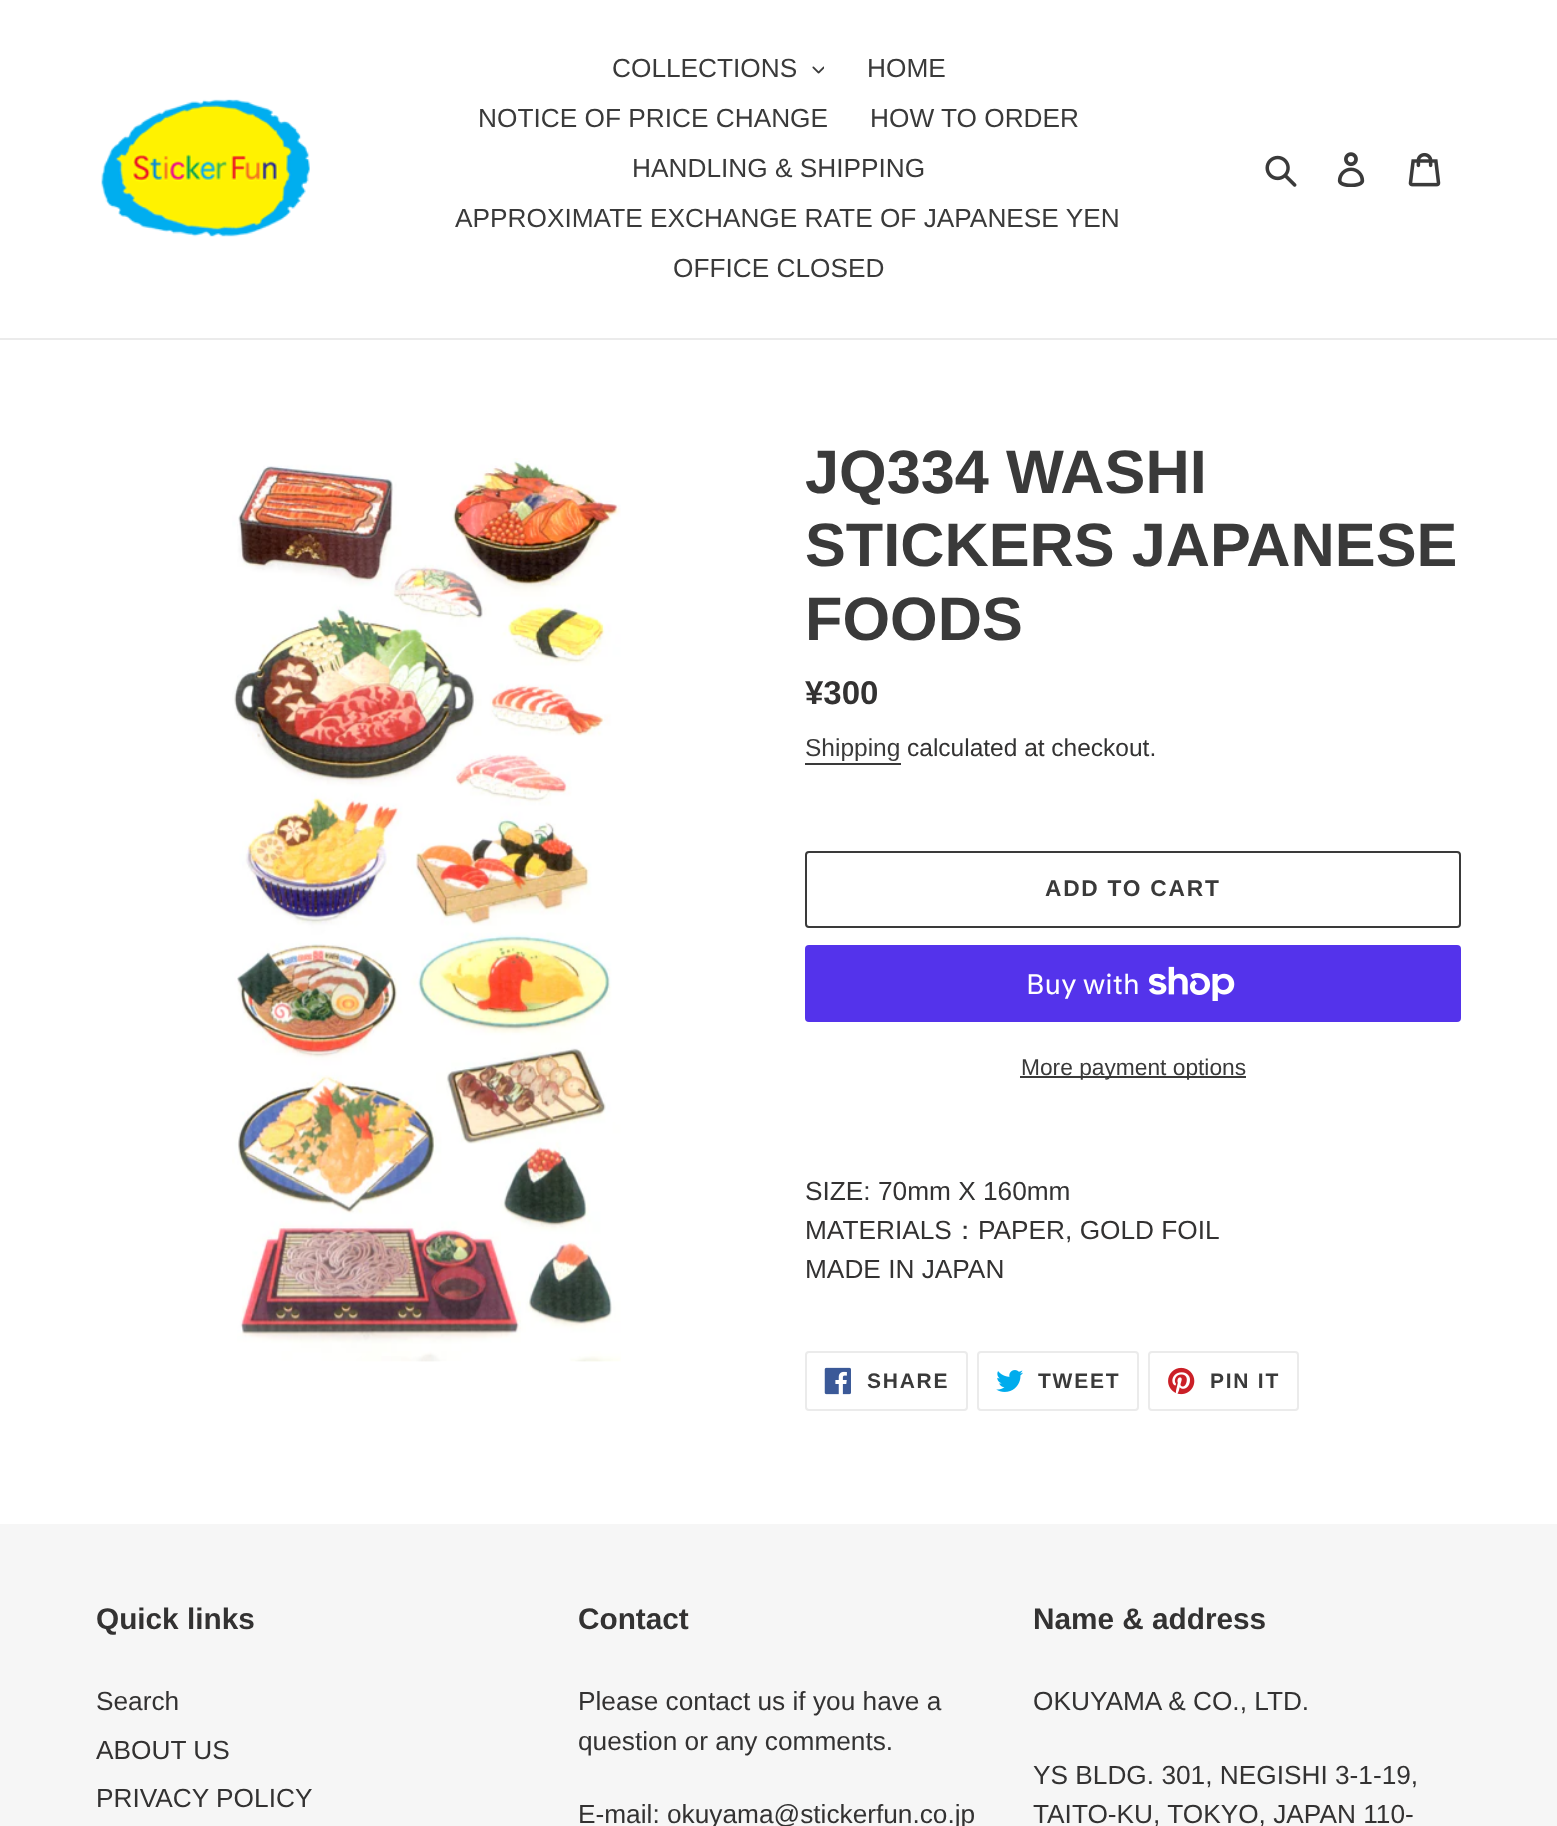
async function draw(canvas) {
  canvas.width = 1557;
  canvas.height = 1826;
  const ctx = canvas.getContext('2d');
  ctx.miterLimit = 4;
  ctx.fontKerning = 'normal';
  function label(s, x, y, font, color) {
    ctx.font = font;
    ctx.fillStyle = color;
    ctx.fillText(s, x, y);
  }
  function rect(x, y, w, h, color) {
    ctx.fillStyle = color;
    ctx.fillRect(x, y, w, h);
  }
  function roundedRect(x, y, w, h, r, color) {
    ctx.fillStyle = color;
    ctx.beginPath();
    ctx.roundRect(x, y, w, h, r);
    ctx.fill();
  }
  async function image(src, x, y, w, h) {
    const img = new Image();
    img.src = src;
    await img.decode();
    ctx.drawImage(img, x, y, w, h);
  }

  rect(0, 0, 1557, 1826, '#fff');
  rect(0, 338, 1557, 2, '#ebebeb');
  await image('assets/img1.png', 101, 99, 209, 138);
  label('COLLECTIONS', 612, 77, '26.25px Liberation Sans', '#3a3a3a');
  await image('assets/img2.png', 812, 66, 12, 8);
  label('HOME', 867, 77, '26.25px Liberation Sans', '#3a3a3a');
  label('NOTICE OF PRICE CHANGE', 478, 127, '26.25px Liberation Sans', '#3a3a3a');
  label('HOW TO ORDER', 870, 127, '26.25px Liberation Sans', '#3a3a3a');
  label('HANDLING & SHIPPING', 632, 177, '26.25px Liberation Sans', '#3a3a3a');
  label('APPROXIMATE EXCHANGE RATE OF JAPANESE YEN', 455, 227, '26.25px Liberation Sans', '#3a3a3a');
  label('OFFICE CLOSED', 673, 277, '26.25px Liberation Sans', '#3a3a3a');
  await image('assets/img3.png', 1265, 155, 32, 32);
  await image('assets/img4.png', 1337, 152, 28, 35);
  await image('assets/img5.png', 1408, 152, 33, 35);
  await image('assets/img6.png', 232, 458, 389, 904);
  label('JQ334 WASHI', 805, 493, 'bold 61.25px Liberation Sans', '#3a3a3a');
  label('STICKERS JAPANESE', 805, 566, 'bold 61.25px Liberation Sans', '#3a3a3a');
  label('FOODS', 805, 640, 'bold 61.25px Liberation Sans', '#3a3a3a');
  label('¥300', 805, 704, 'bold 33px Liberation Sans', '#333232');
  label('Shipping', 805, 756, '24.5px Liberation Sans', '#3a3a3a');
  rect(805, 763, 96, 2, '#3a3a3a');
  label('calculated at checkout.', 907, 756, '24.5px Liberation Sans', '#333232');
  ctx.beginPath();
  ctx.roundRect(806, 852, 654, 75, 3);
  ctx.strokeStyle = '#3a3a3a';
  ctx.lineWidth = 2;
  ctx.stroke();
  ctx.letterSpacing = '1.75px';
  label('ADD TO CART', 1045, 896, 'bold 22.75px Liberation Sans', '#3a3a3a');
  roundedRect(805, 945, 656, 77, 4, '#5433eb');
  ctx.letterSpacing = '0px';
  label('Buy with', 1026, 994, '28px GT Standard', '#fff');
  await image('assets/img7.png', 1149, 966, 86, 35);
  rect(1020, 1076, 226, 2, '#3a3a3a');
  label('More payment options', 1021, 1075, '22.75px Liberation Sans', '#3a3a3a');
  label('SIZE: 70mm X 160mm', 805, 1200, '26.25px Liberation Sans', '#333232');
  label('MATERIALS', 805, 1239, '26.25px Liberation Sans', '#333232');
  label('：', 952, 1239, '500 26.25px WenQuanYi Zen Hei', '#333232');
  label('PAPER, GOLD FOIL', 978, 1239, '26.25px Liberation Sans', '#333232');
  label('MADE IN JAPAN', 805, 1278, '26.25px Liberation Sans', '#333232');
  ctx.beginPath();
  ctx.roundRect(806, 1352, 161, 58, 3);
  ctx.strokeStyle = '#ebebeb';
  ctx.stroke();
  await image('assets/img8.png', 824, 1367, 27, 28);
  ctx.letterSpacing = '1.75px';
  label('SHARE', 867, 1388, 'bold 21px Liberation Sans', '#3a3a3a');
  ctx.beginPath();
  ctx.roundRect(978, 1352, 160, 58, 3);
  ctx.stroke();
  await image('assets/img9.png', 996, 1370, 27, 22);
  label('TWEET', 1038, 1388, 'bold 21px Liberation Sans', '#3a3a3a');
  ctx.beginPath();
  ctx.roundRect(1149, 1352, 149, 58, 3);
  ctx.stroke();
  await image('assets/img10.png', 1168, 1367, 27, 28);
  label('PIN IT', 1210, 1388, 'bold 21px Liberation Sans', '#3a3a3a');
  rect(0, 1524, 1557, 302, '#f6f6f6');
  ctx.letterSpacing = '0px';
  label('Quick links', 96, 1629, 'bold 29.75px Liberation Sans', '#333232');
  label('Search', 96, 1710, '26.25px Liberation Sans', '#333232');
  label('ABOUT US', 96, 1759, '26.25px Liberation Sans', '#333232');
  label('PRIVACY POLICY', 96, 1807, '26.25px Liberation Sans', '#333232');
  label('Contact', 578, 1629, 'bold 29.75px Liberation Sans', '#333232');
  label('Please contact us if you have a', 578, 1710, '26.25px Liberation Sans', '#333232');
  label('question or any comments.', 578, 1750, '26.25px Liberation Sans', '#333232');
  label('E-mail: okuyama@stickerfun.co.jp', 578, 1823, '26.25px Liberation Sans', '#333232');
  label('Name & address', 1033, 1629, 'bold 29.75px Liberation Sans', '#333232');
  label('OKUYAMA & CO., LTD.', 1033, 1710, '26.25px Liberation Sans', '#333232');
  label('YS BLDG. 301, NEGISHI 3-1-19,', 1033, 1784, '26.25px Liberation Sans', '#333232');
  label('TAITO-KU, TOKYO, JAPAN 110-', 1033, 1823, '26.25px Liberation Sans', '#333232');
}

draw(document.querySelector('canvas'));
